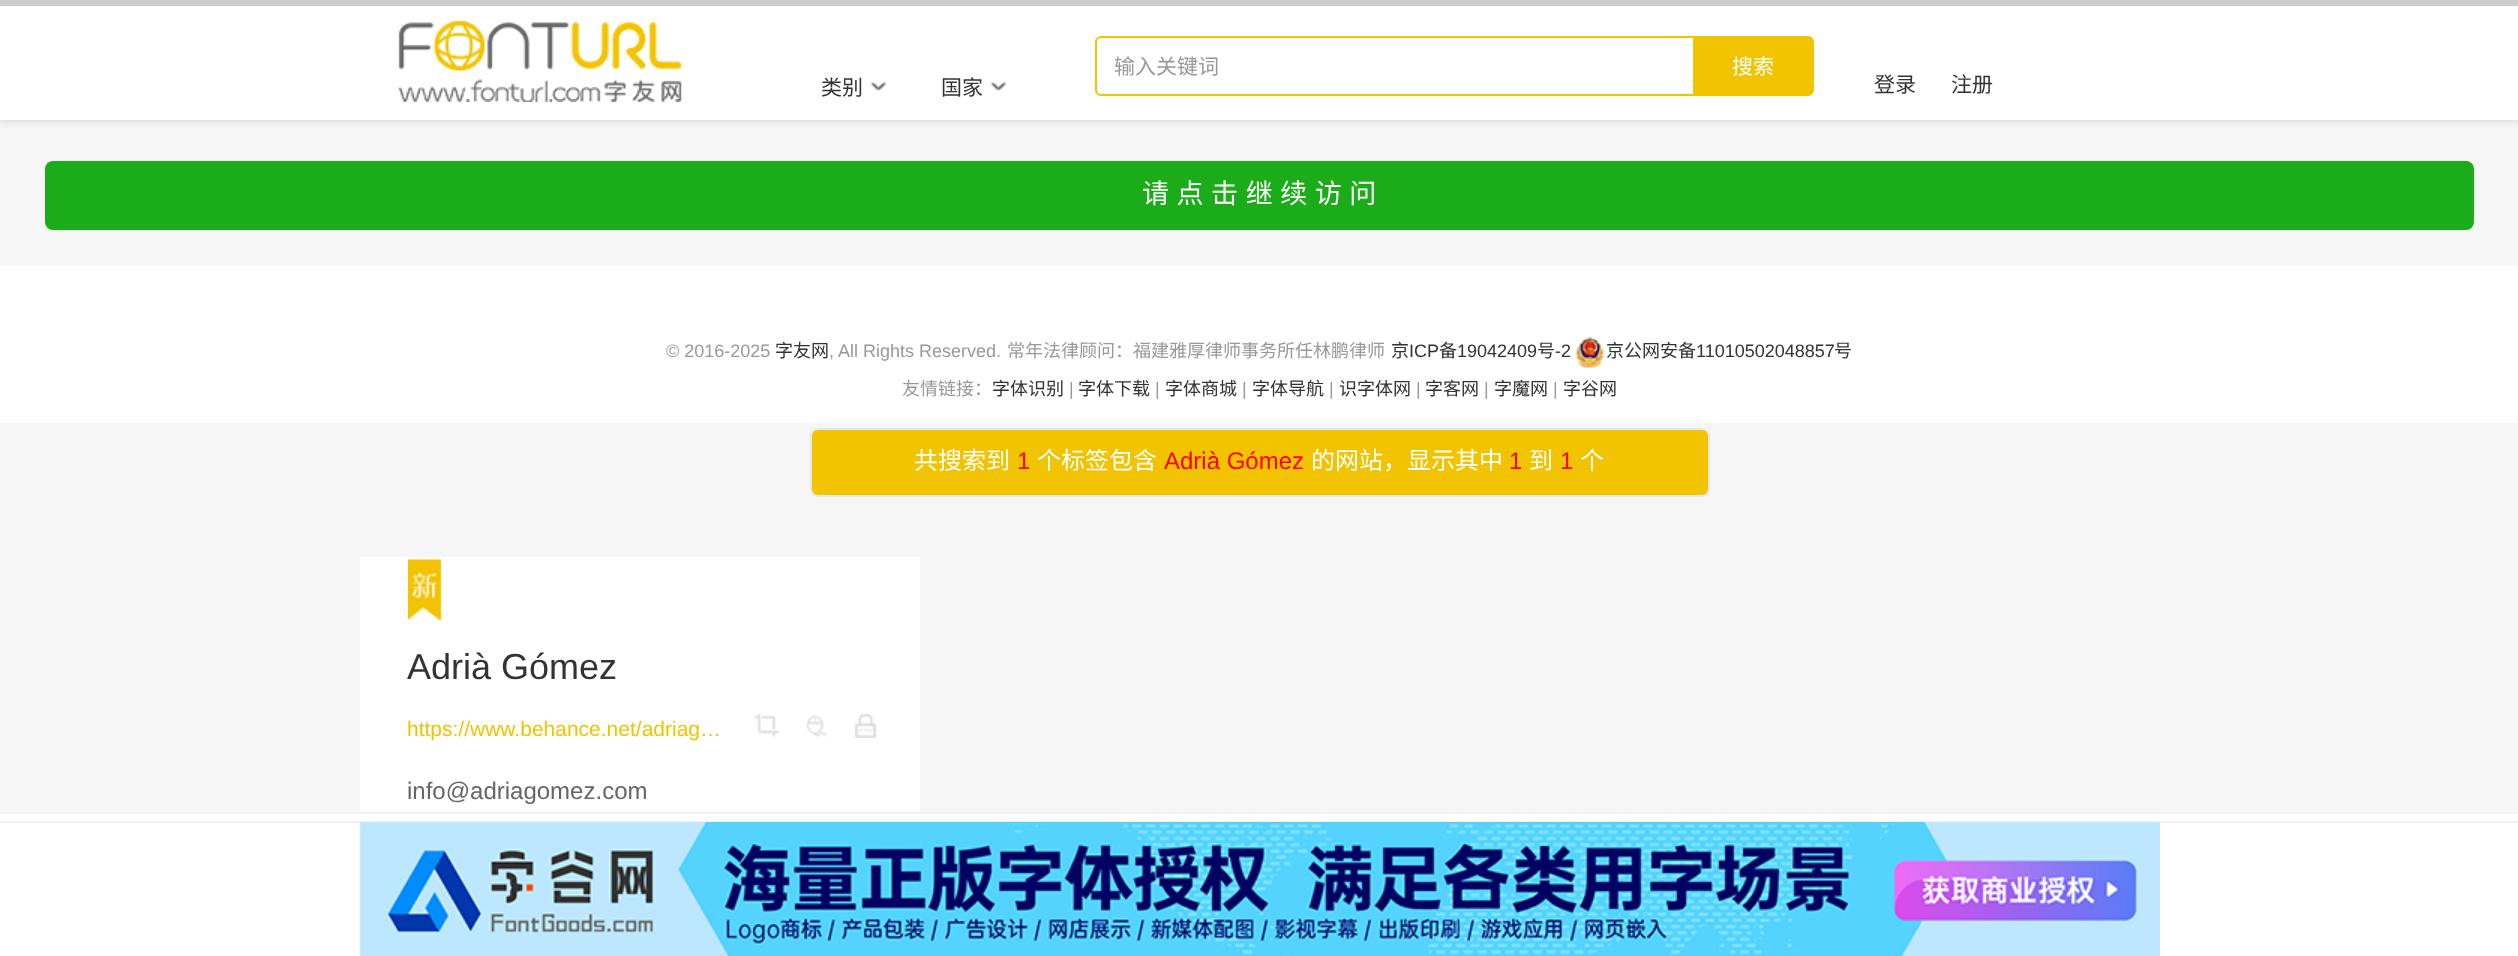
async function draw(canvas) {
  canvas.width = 2518;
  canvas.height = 956;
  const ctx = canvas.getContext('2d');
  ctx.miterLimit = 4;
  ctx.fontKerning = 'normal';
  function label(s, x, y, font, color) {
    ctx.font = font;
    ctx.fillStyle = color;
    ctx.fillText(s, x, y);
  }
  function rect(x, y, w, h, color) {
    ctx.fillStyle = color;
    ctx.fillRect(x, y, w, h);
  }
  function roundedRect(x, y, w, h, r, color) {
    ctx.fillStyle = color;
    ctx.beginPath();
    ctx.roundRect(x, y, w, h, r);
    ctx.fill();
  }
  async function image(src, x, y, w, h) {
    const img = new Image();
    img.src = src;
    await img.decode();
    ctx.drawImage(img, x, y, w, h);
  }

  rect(0, 0, 2518, 956, '#f6f6f6');
  ctx.fillStyle = '#ccc';
  ctx.filter = 'blur(4px)';
  ctx.beginPath();
  ctx.rect(0, 0, 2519, 120);
  ctx.fill();
  ctx.filter = 'none';
  rect(0, 6, 2518, 114, '#fff');
  rect(0, 0, 2518, 6, '#ccc');
  await image('assets/img1.png', 398, 21, 284, 81);
  ctx.beginPath();
  ctx.roundRect(1096, 37, 598, 58, [5, 0, 0, 5]);
  ctx.strokeStyle = '#f2c300';
  ctx.lineWidth = 2;
  ctx.stroke();
  ctx.save();
  ctx.beginPath();
  ctx.rect(1115, 50, 561, 30);
  ctx.clip();
  label('输入关键词', 1114, 74, '21px Noto Sans CJK SC', '#999');
  ctx.restore();
  ctx.fillStyle = '#f2c300';
  ctx.beginPath();
  ctx.roundRect(1694, 36, 120, 60, [0, 6, 6, 0]);
  ctx.fill();
  label('搜索', 1732, 74, '21px Noto Sans CJK SC', '#fff');
  label('类别', 821, 95, '21px Noto Sans CJK SC', '#333');
  await image('assets/img2.png', 870, 81, 17, 10);
  label('国家', 941, 95, '21px Noto Sans CJK SC', '#333');
  await image('assets/img2.png', 990, 81, 17, 10);
  label('登录', 1874, 92, '21px Noto Sans CJK SC', '#333');
  label('注册', 1951, 92, '21px Noto Sans CJK SC', '#333');
  roundedRect(45, 161, 2429, 69, 8, '#1aad19');
  ctx.wordSpacing = '1.5px';
  label('请 点 击 继 续 访 问', 1142, 203, '27px Noto Sans CJK SC', '#fff');
  rect(0, 266, 2518, 157, '#fff');
  ctx.wordSpacing = '0px';
  label('© 2016-2025', 666, 357, '18px Liberation Sans', '#999');
  label('字友网', 775, 357, '18px Noto Sans CJK SC', '#333');
  label(', All Rights Reserved.', 829, 357, '18px Liberation Sans', '#999');
  label('常年法律顾问：福建雅厚律师事务所任林鹏律师', 1007, 357, '18px Noto Sans CJK SC', '#999');
  label('京', 1391, 357, '18px Noto Sans CJK SC', '#333');
  label('ICP', 1409, 357, '18px Liberation Sans', '#333');
  label('备', 1439, 357, '18px Noto Sans CJK SC', '#333');
  label('19042409', 1457, 357, '18px Liberation Sans', '#333');
  label('号', 1537, 357, '18px Noto Sans CJK SC', '#333');
  label('-2', 1555, 357, '18px Liberation Sans', '#333');
  await image('assets/img3.png', 1576, 337, 28, 31);
  label('京公网安备', 1606, 357, '18px Noto Sans CJK SC', '#333');
  label('11010502048857', 1696, 357, '18px Liberation Sans', '#333');
  label('号', 1834, 357, '18px Noto Sans CJK SC', '#333');
  label('友情链接：', 902, 395, '18px Noto Sans CJK SC', '#999');
  label('字体识别', 992, 395, '18px Noto Sans CJK SC', '#333');
  label('|', 1069, 395, '18px Liberation Sans', '#999');
  label('字体下载', 1078, 395, '18px Noto Sans CJK SC', '#333');
  label('|', 1155, 395, '18px Liberation Sans', '#999');
  label('字体商城', 1165, 395, '18px Noto Sans CJK SC', '#333');
  label('|', 1242, 395, '18px Liberation Sans', '#999');
  label('字体导航', 1252, 395, '18px Noto Sans CJK SC', '#333');
  label('|', 1329, 395, '18px Liberation Sans', '#999');
  label('识字体网', 1339, 395, '18px Noto Sans CJK SC', '#333');
  label('|', 1416, 395, '18px Liberation Sans', '#999');
  label('字客网', 1425, 395, '18px Noto Sans CJK SC', '#333');
  label('|', 1484, 395, '18px Liberation Sans', '#999');
  label('字魔网', 1494, 395, '18px Noto Sans CJK SC', '#333');
  label('|', 1553, 395, '18px Liberation Sans', '#999');
  label('字谷网', 1563, 395, '18px Noto Sans CJK SC', '#333');
  rect(0, 814, 2518, 142, '#fff');
  rect(0, 812, 2518, 2, '#f0f0f0');
  rect(0, 821, 2518, 2, '#f0f0f0');
  await image('assets/img4.png', 359, 822, 1801, 134);
  ctx.fillStyle = '#f2c300';
  ctx.beginPath();
  ctx.roundRect(811, 429, 898, 67, 7);
  ctx.fill();
  ctx.strokeStyle = '#e8e8e8';
  ctx.stroke();
  label('共搜索到', 914, 469, '24px Noto Sans CJK SC', '#fff');
  label('1', 1017, 469, '24px Liberation Sans', '#f00');
  label('个标签包含', 1037, 469, '24px Noto Sans CJK SC', '#fff');
  label('Adrià Gómez', 1164, 469, '24px Liberation Sans', '#f00');
  label('的网站，显示其中', 1311, 469, '24px Noto Sans CJK SC', '#fff');
  label('1', 1509, 469, '24px Liberation Sans', '#f00');
  label('到', 1529, 469, '24px Noto Sans CJK SC', '#fff');
  label('1', 1560, 469, '24px Liberation Sans', '#f00');
  label('个', 1580, 469, '24px Noto Sans CJK SC', '#fff');
  rect(360, 557, 560, 255, '#fff');
  await image('assets/img5.png', 408, 559, 34, 62);
  label('Adrià Gómez', 407, 679, '36px Liberation Sans', '#333');
  label('https://www.behance.net/adriag…', 407, 736, '21px Liberation Sans', '#f2c300');
  await image('assets/img6.png', 754, 714, 25, 23);
  await image('assets/img7.png', 806, 715, 21, 22);
  await image('assets/img8.png', 854, 714, 23, 24);
  label('info@adriagomez.com', 407, 799, '24px Liberation Sans', '#666');
}

draw(document.querySelector('canvas'));
